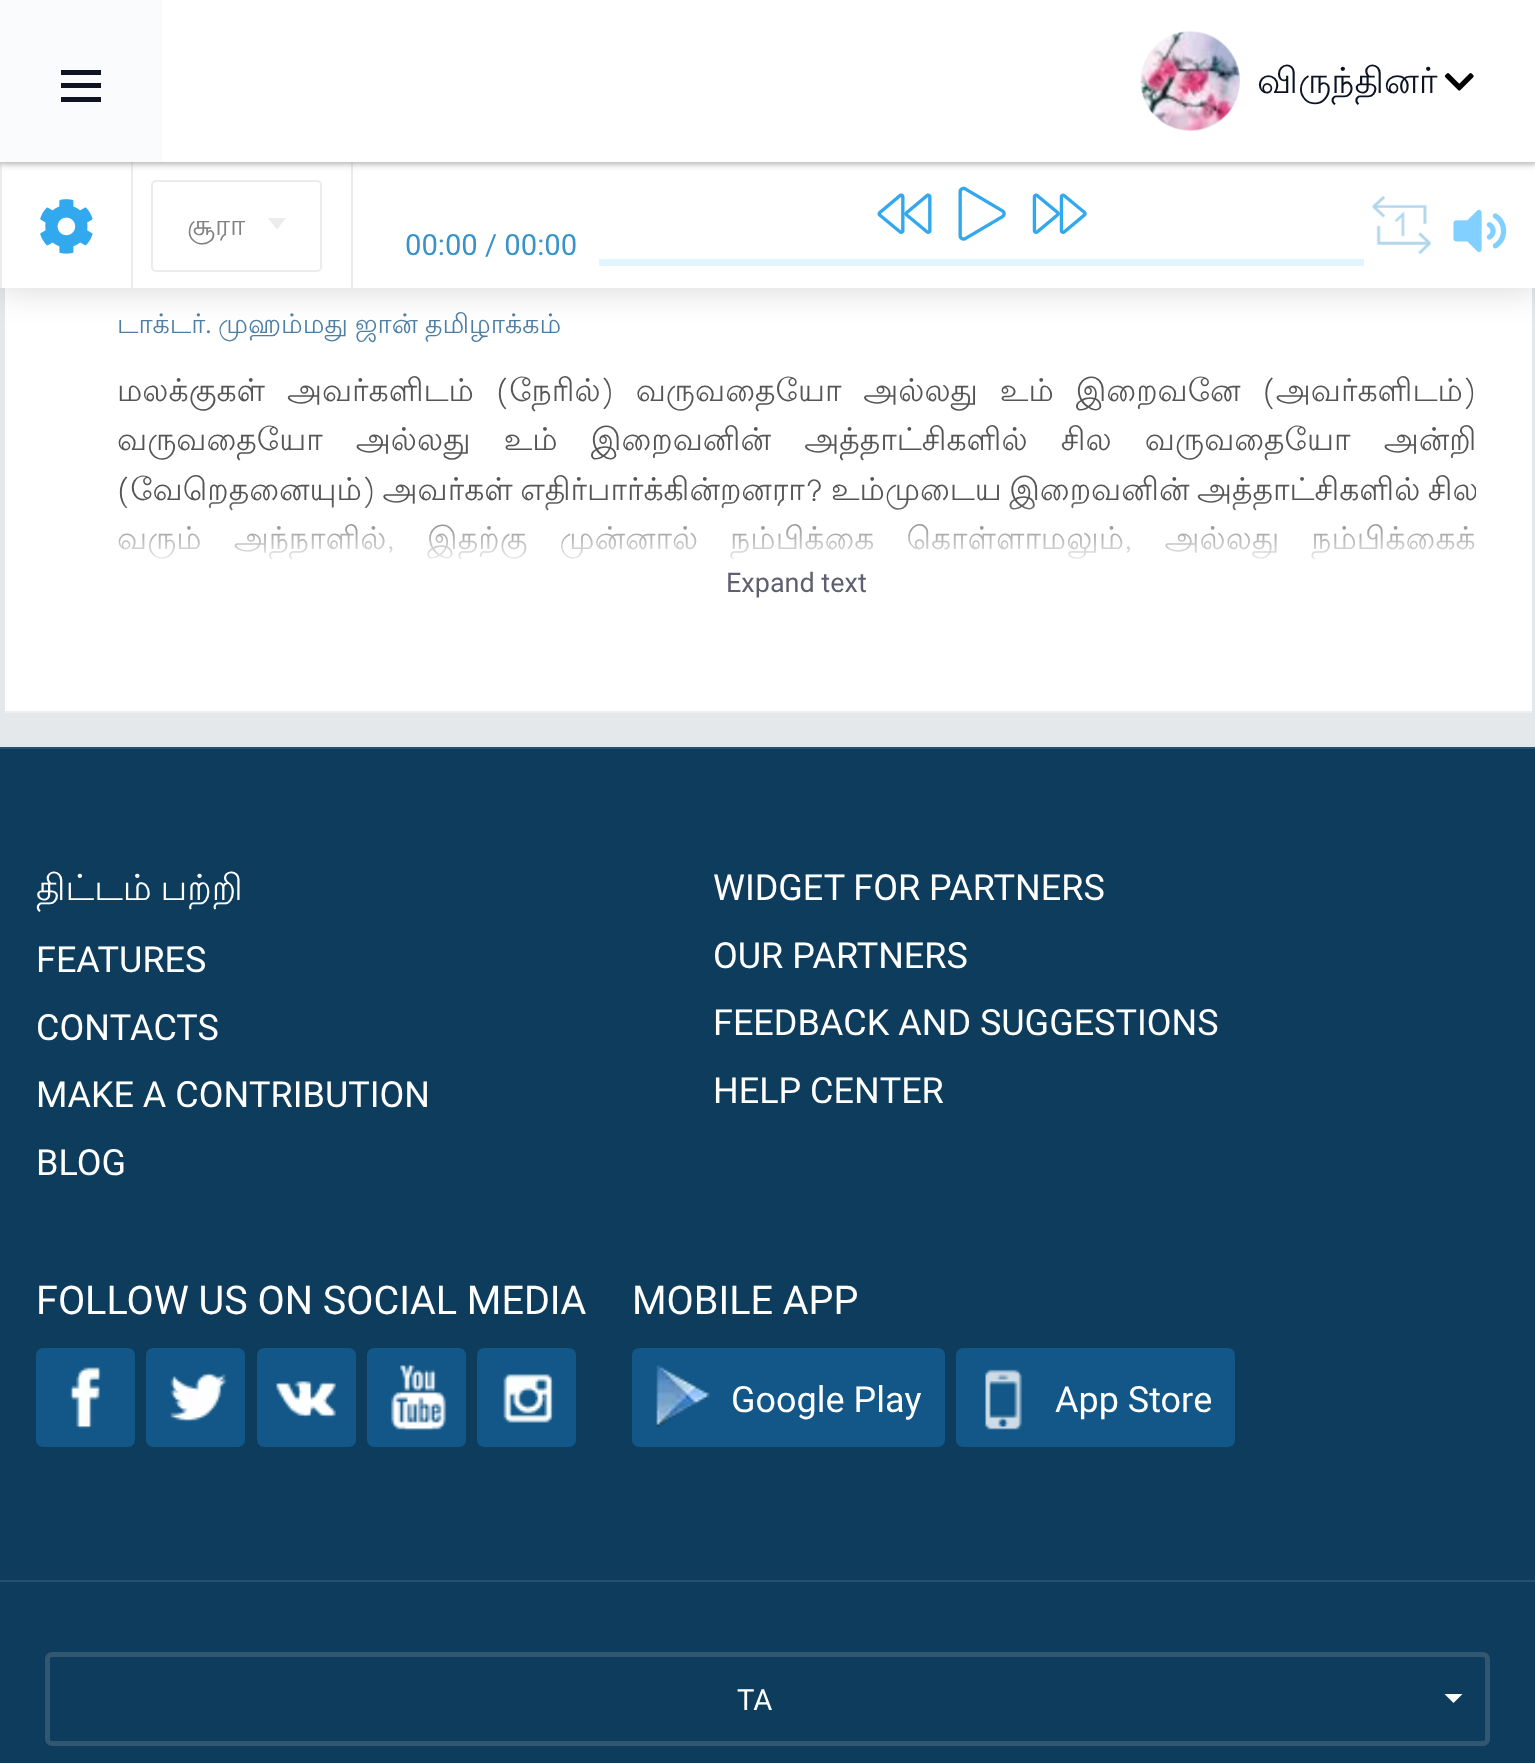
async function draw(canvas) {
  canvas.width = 1535;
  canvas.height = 1763;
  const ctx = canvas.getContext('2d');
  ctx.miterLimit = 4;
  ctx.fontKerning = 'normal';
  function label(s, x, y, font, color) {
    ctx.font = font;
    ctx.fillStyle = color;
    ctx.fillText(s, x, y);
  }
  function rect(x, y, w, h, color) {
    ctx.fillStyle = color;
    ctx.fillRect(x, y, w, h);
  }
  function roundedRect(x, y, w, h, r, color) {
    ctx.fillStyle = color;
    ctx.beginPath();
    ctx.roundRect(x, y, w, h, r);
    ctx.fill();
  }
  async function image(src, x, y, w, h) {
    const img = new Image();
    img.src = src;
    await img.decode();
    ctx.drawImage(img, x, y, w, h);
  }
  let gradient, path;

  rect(0, 0, 1535, 1763, '#e5e8eb');
  rect(5, 288, 1527, 423, '#fff');
  ctx.fillStyle = '#00000026';
  ctx.filter = 'blur(17px)';
  ctx.beginPath();
  ctx.rect(-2, 160, 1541, 130);
  ctx.fill();
  ctx.filter = 'none';
  rect(2, 162, 1533, 126, '#fff');
  rect(131, 162, 2, 126, '#ececec');
  rect(0, 162, 2, 126, '#ececec');
  rect(351, 162, 2, 126, '#ececec');
  ctx.fillStyle = '#00000033';
  ctx.filter = 'blur(2px)';
  ctx.beginPath();
  ctx.rect(0, 2, 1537, 162);
  ctx.fill();
  ctx.filter = 'none';
  ctx.fillStyle = '#aaaaaa80';
  ctx.filter = 'blur(4.5px)';
  ctx.beginPath();
  ctx.rect(0, 2, 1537, 162);
  ctx.fill();
  ctx.filter = 'none';
  rect(162, 0, 1373, 162, '#fff');
  rect(0, 0, 162, 162, '#fafbfc');
  rect(61, 70, 40, 5, '#0d1322');
  rect(61, 83, 40, 5, '#0d1322');
  rect(61, 97, 40, 5, '#0d1322');
  await image('assets/img1.png', 1140, 31, 100, 100);
  label('விருந்தினர்', 1257, 93, '36px Lohit Tamil', '#0d1322');
  await image('assets/img2.png', 1444, 73, 30, 18);
  await image('assets/img3.png', 40, 199, 53, 55);
  ctx.beginPath();
  ctx.roundRect(152, 181, 169, 90, 4);
  ctx.strokeStyle = '#ececec';
  ctx.lineWidth = 2;
  ctx.stroke();
  label('சூரா', 187, 235, '29.25px Lohit Tamil', '#828282');
  ctx.fillStyle = '#ececec';
  path = new Path2D('M268 218H286L277 229.5Z');
  ctx.fill(path);
  label('00:00 / 00:00', 405, 255, '29.25px Roboto', '#3993c9');
  await image('assets/img4.png', 877, 193, 55, 41);
  await image('assets/img5.png', 958, 186, 48, 55);
  await image('assets/img6.png', 1032, 193, 55, 42);
  rect(599, 259, 765, 7, '#e0f5ff');
  await image('assets/img7.png', 1372, 195, 60, 59);
  await image('assets/img8.png', 1453, 209, 54, 43);
  rect(5, 711, 1527, 2, '#eee');
  label('டாக்டர்', 117, 333, '27px Lohit Tamil', '#4d7fa6');
  label('.', 205, 333, '27px Roboto', '#4d7fa6');
  ctx.wordSpacing = '-1px';
  label('முஹம்மது ஜான் தமிழாக்கம்', 218, 333, '27px Lohit Tamil', '#4d7fa6');
  ctx.wordSpacing = '12.5px';
  label('மலக்குகள் அவர்களிடம் (நேரில்) வருவதையோ அல்லது உம் இறைவனே (அவர்களிடம்)', 117, 401, '31.5px Lohit Tamil', '#555');
  ctx.wordSpacing = '23.75px';
  label('வருவதையோ அல்லது உம் இறைவனின் அத்தாட்சிகளில் சில வருவதையோ அன்றி', 117, 450, '31.5px Lohit Tamil', '#555');
  ctx.save();
  ctx.beginPath();
  ctx.rect(117, 365, 1359, 225);
  ctx.clip();
  ctx.wordSpacing = '-2px';
  label('(வேறெதனையும்) அவர்கள் எதிர்பார்க்கின்றனரா? உம்முடைய இறைவனின் அத்தாட்சிகளில் சில', 117, 500, '31.5px Lohit Tamil', '#555');
  ctx.restore();
  ctx.wordSpacing = '22.5px';
  label('வரும் அந்நாளில், இதற்கு முன்னால் நம்பிக்கை கொள்ளாமலும், அல்லது நம்பிக்கைக்', 117, 549, '31.5px Lohit Tamil', '#555');
  gradient = ctx.createLinearGradient(797, 499, 797, 599);
  gradient.addColorStop(0, '#ffffff00');
  gradient.addColorStop(0.68, '#fff');
  ctx.fillStyle = gradient;
  ctx.fillRect(118, 500, 1357, 60);
  ctx.wordSpacing = '0px';
  label('Expand text', 726, 592, '27px Roboto', '#5f5f71');
  rect(0, 749, 1535, 831, '#0e3c5c');
  rect(0, 747, 1535, 2, '#27506d');
  ctx.wordSpacing = '-2px';
  label('திட்டம் பற்றி', 36, 900, '36px Lohit Tamil', '#fff');
  ctx.wordSpacing = '0px';
  label('FEATURES', 36, 972, '36px Roboto', '#fff');
  label('CONTACTS', 36, 1040, '36px Roboto', '#fff');
  label('MAKE A CONTRIBUTION', 36, 1107, '36px Roboto', '#fff');
  label('BLOG', 36, 1175, '36px Roboto', '#fff');
  label('WIDGET FOR PARTNERS', 713, 900, '36px Roboto', '#fff');
  label('OUR PARTNERS', 713, 968, '36px Roboto', '#fff');
  label('FEEDBACK AND SUGGESTIONS', 713, 1035, '36px Roboto', '#fff');
  label('HELP CENTER', 713, 1103, '36px Roboto', '#fff');
  label('FOLLOW US ON SOCIAL MEDIA', 36, 1314, '39.6px Roboto', '#fff');
  roundedRect(36, 1348, 99, 99, 7, '#125788');
  await image('assets/img9.png', 69, 1367, 33, 62);
  roundedRect(146, 1348, 99, 99, 7, '#125788');
  await image('assets/img10.png', 170, 1372, 58, 50);
  roundedRect(257, 1348, 99, 99, 7, '#125788');
  await image('assets/img11.png', 276, 1381, 60, 37);
  roundedRect(367, 1348, 99, 99, 7, '#125788');
  await image('assets/img12.png', 391, 1363, 56, 68);
  roundedRect(477, 1348, 99, 99, 7, '#125788');
  await image('assets/img13.png', 503, 1374, 51, 49);
  label('MOBILE APP', 632, 1314, '39.6px Roboto', '#fff');
  roundedRect(632, 1348, 313, 99, 7, '#125788');
  await image('assets/img14.png', 656, 1365, 54, 62);
  label('Google Play', 731, 1412, '36px Roboto', '#fff');
  roundedRect(956, 1348, 279, 99, 7, '#125788');
  await image('assets/img15.png', 985, 1369, 37, 61);
  label('App Store', 1055, 1412, '36px Roboto', '#fff');
  rect(0, 1582, 1535, 181, '#0e3c5c');
  rect(0, 1580, 1535, 2, '#27506d');
  ctx.beginPath();
  ctx.roundRect(47.5, 1654.5, 1440, 89, 4.5);
  ctx.strokeStyle = '#325771';
  ctx.lineWidth = 5;
  ctx.stroke();
  label('TA', 737, 1710, '29.25px Roboto', '#fff');
  path = new Path2D('M1444.5 1694H1462.5L1453.5 1703Z');
  ctx.fill(path);
}

draw(document.querySelector('canvas'));
